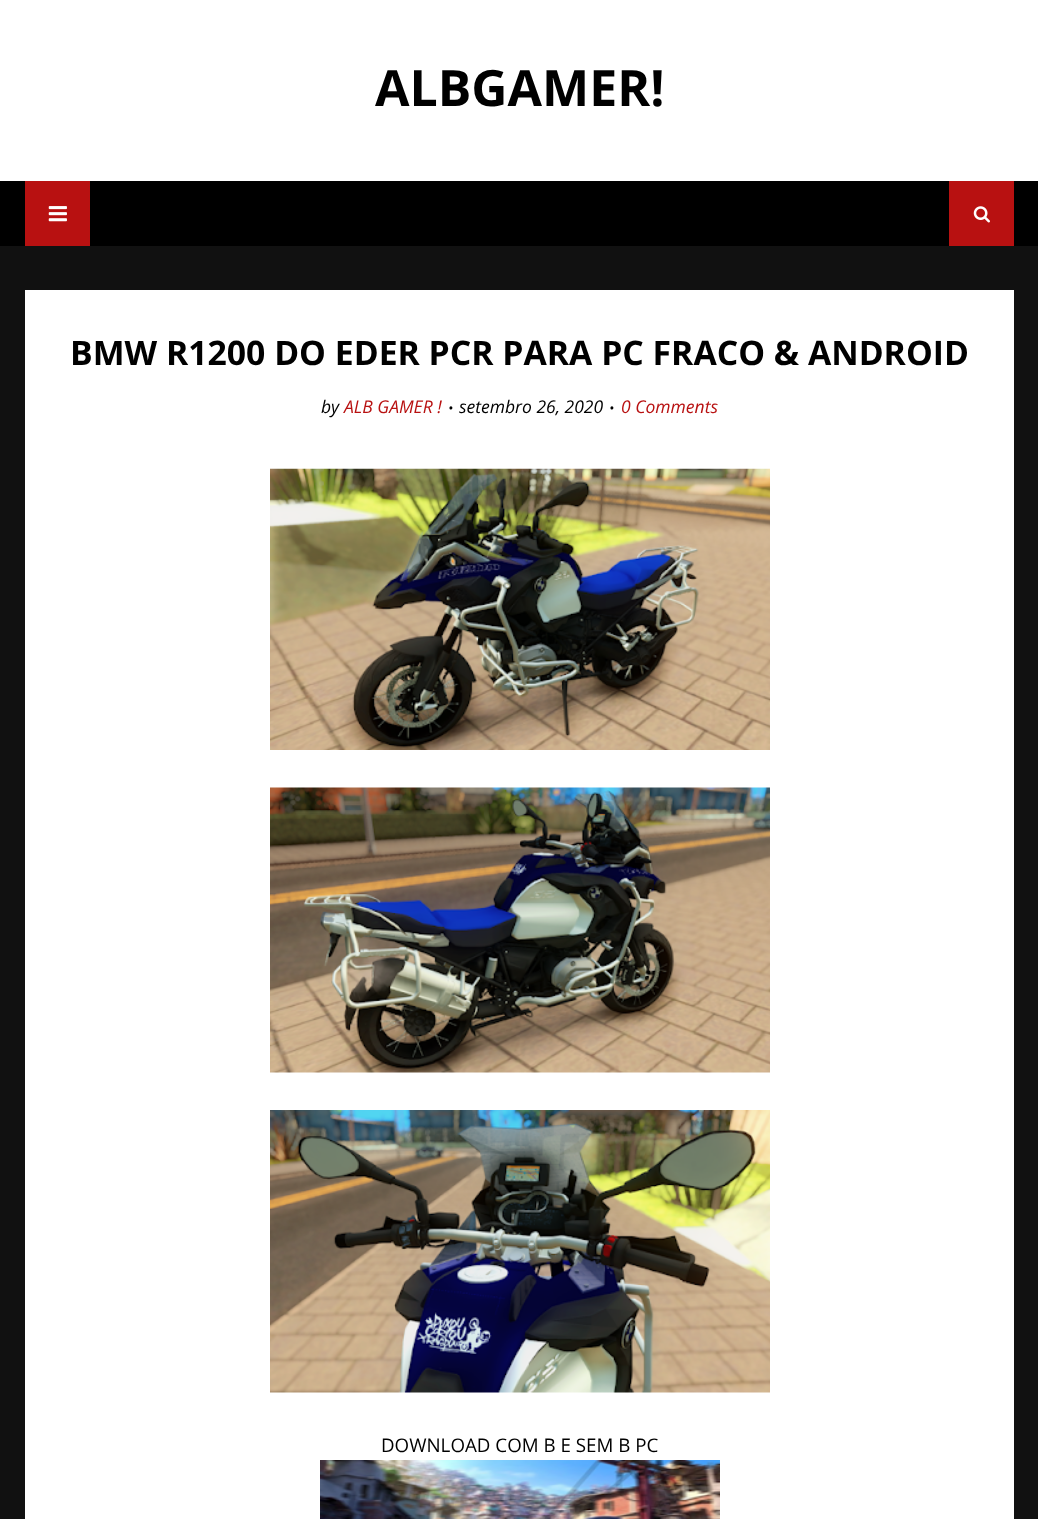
async function draw(canvas) {
  canvas.width = 1038;
  canvas.height = 1519;
  const ctx = canvas.getContext('2d');
  ctx.miterLimit = 4;
  ctx.fontKerning = 'normal';
  function label(s, x, y, font, color) {
    ctx.font = font;
    ctx.fillStyle = color;
    ctx.fillText(s, x, y);
  }
  function rect(x, y, w, h, color) {
    ctx.fillStyle = color;
    ctx.fillRect(x, y, w, h);
  }
  async function image(src, x, y, w, h) {
    const img = new Image();
    img.src = src;
    await img.decode();
    ctx.drawImage(img, x, y, w, h);
  }

  rect(0, 0, 1038, 1519, '#111');
  rect(0, 0, 1038, 181, '#fff');
  label('ALBGAMER!', 375, 106, 'bold 50px Open Sans', '#000');
  rect(0, 181, 1038, 65, '#000');
  rect(25, 181, 65, 65, '#b81111');
  await image('assets/img1.png', 48, 206, 19, 16);
  rect(949, 181, 65, 65, '#b81111');
  await image('assets/img2.png', 973, 206, 17, 17);
  rect(25, 290, 989, 1229, '#fff');
  label('BMW R1200 DO EDER PCR PARA PC FRACO & ANDROID', 70, 365, 'bold 33.75px Open Sans', '#000');
  label('by', 321, 413, 'italic 17.5px Open Sans', '#000');
  label('ALB GAMER !', 344, 413, 'italic 17.5px Open Sans', '#b81111');
  label('•', 448, 413, 'italic 14px Open Sans', '#000');
  label('setembro 26, 2020', 459, 413, 'italic 17.5px Open Sans', '#000');
  label('•', 609, 413, 'italic 14px Open Sans', '#000');
  label('0 Comments', 621, 413, 'italic 17.5px Open Sans', '#b81111');
  await image('assets/img3.png', 270, 468, 500, 282);
  await image('assets/img4.png', 270, 787, 500, 286);
  await image('assets/img5.png', 270, 1110, 500, 283);
  label('DOWNLOAD COM B E SEM B PC', 381, 1452, '18.75px Open Sans', '#000');
  await image('assets/img6.png', 320, 1460, 400, 59);
}

draw(document.querySelector('canvas'));
